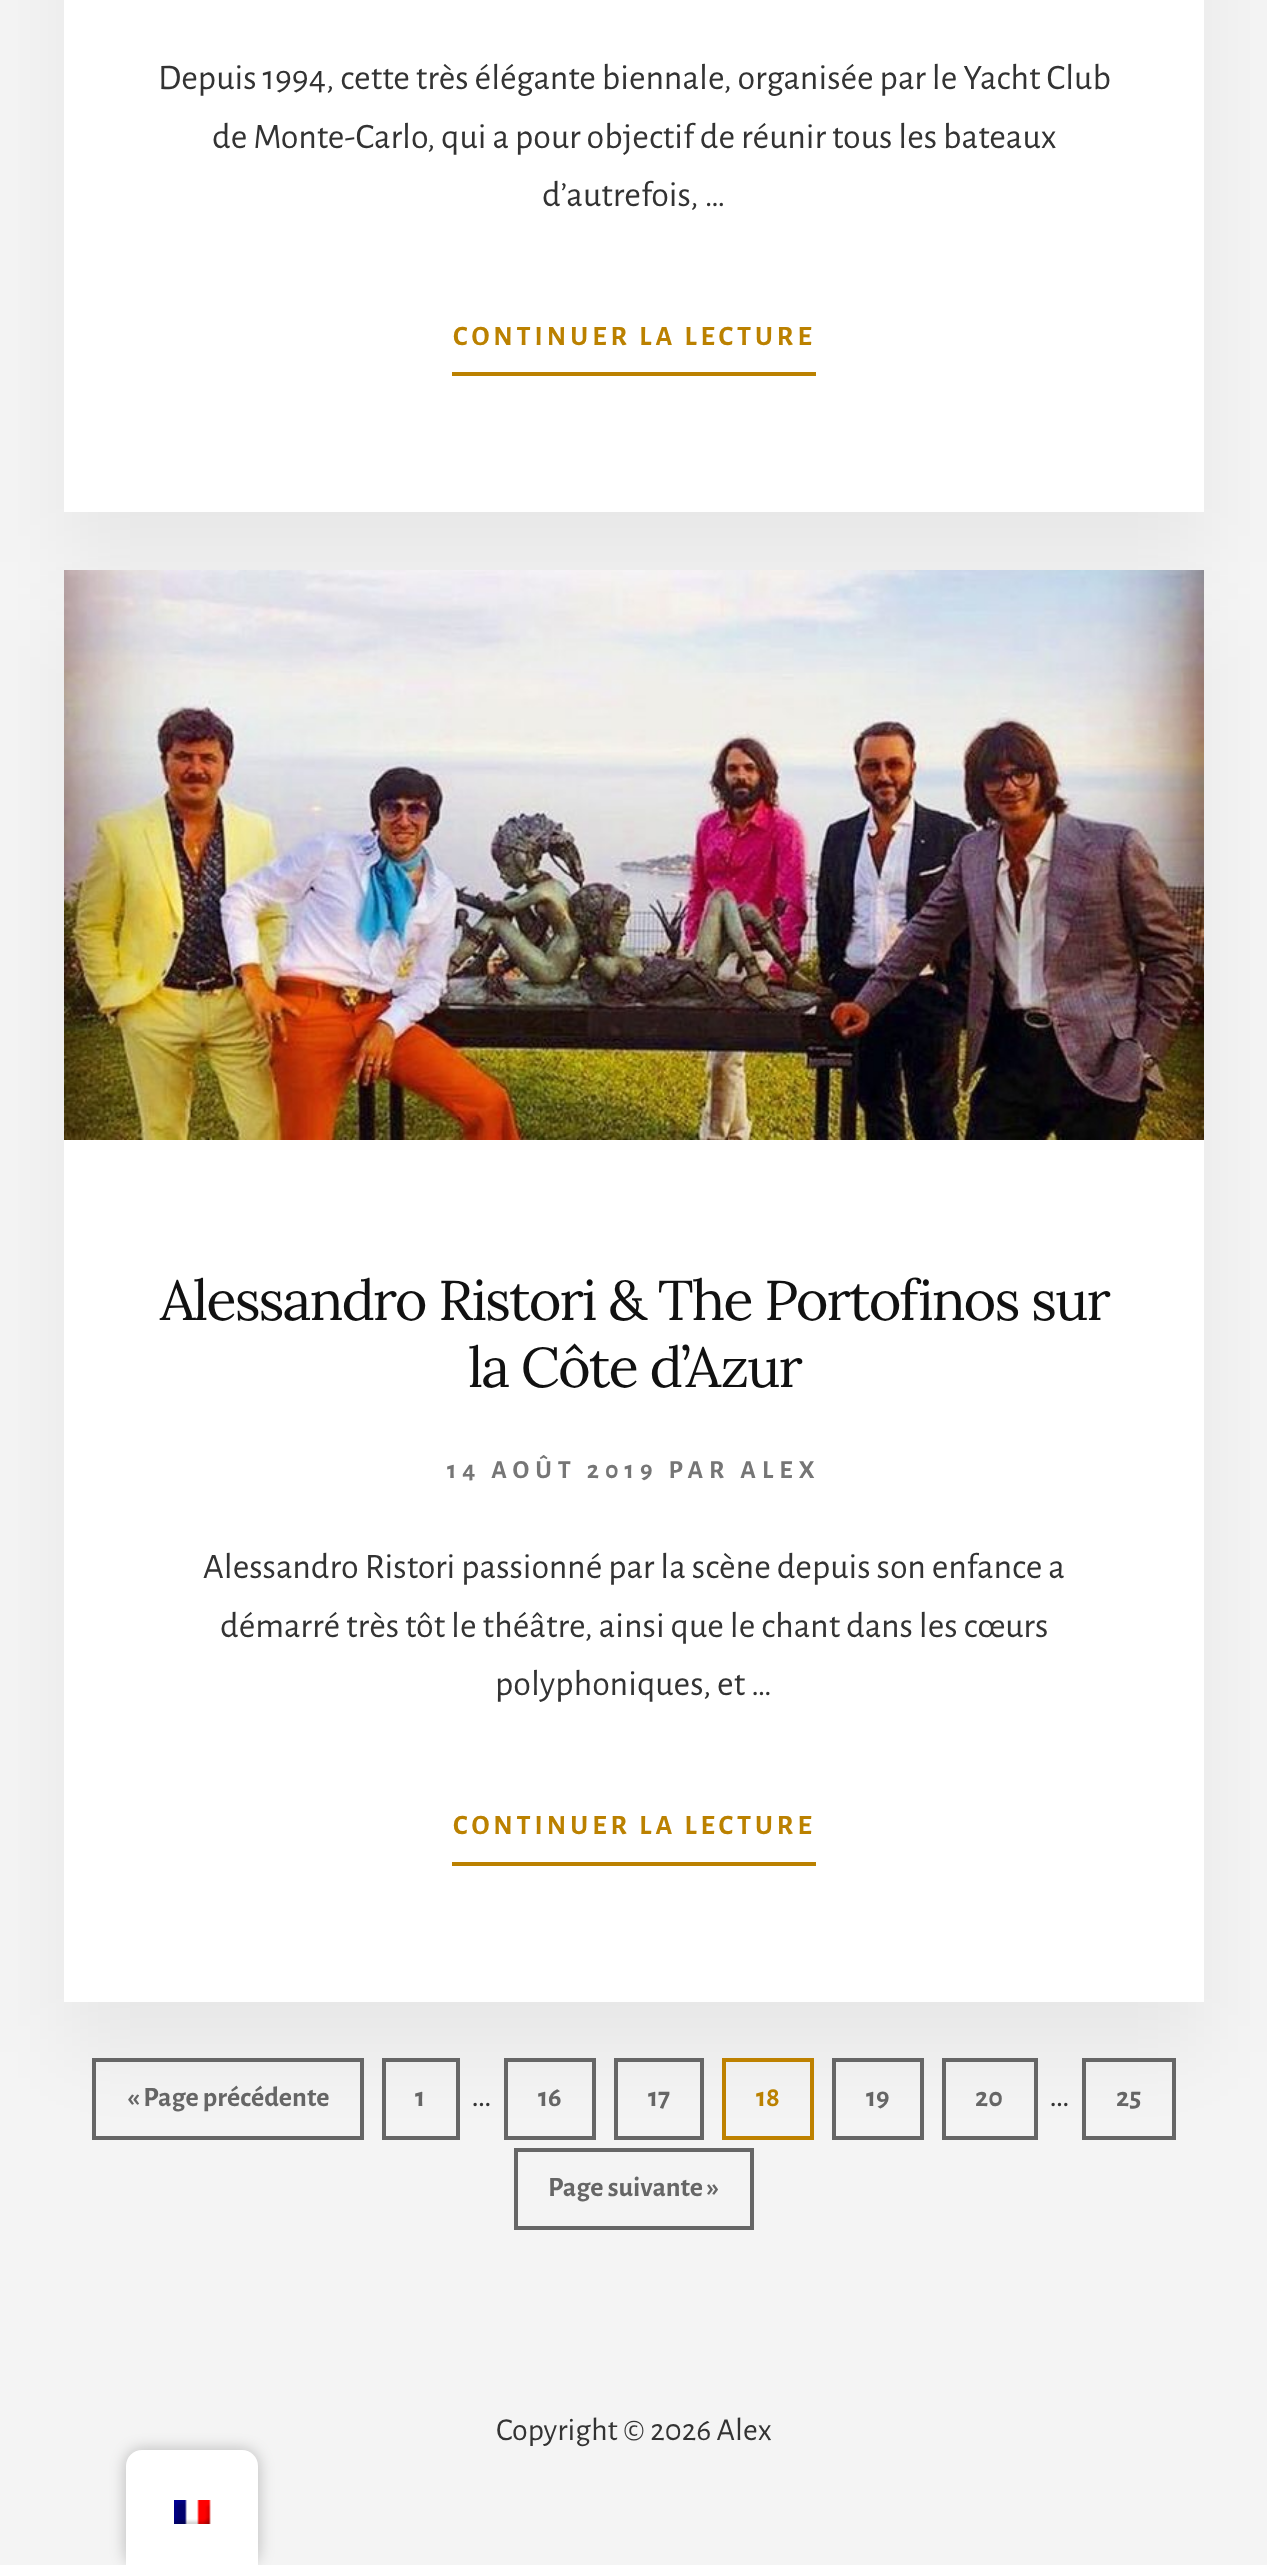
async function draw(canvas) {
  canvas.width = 1267;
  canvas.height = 2565;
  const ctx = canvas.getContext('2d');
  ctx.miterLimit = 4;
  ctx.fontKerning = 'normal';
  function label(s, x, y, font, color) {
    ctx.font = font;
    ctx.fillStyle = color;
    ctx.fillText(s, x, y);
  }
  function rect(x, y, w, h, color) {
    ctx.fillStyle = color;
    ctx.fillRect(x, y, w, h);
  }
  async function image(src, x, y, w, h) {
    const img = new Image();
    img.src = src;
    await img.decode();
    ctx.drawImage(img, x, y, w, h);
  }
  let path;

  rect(0, 0, 1267, 2565, '#f4f4f4');
  ctx.fillStyle = '#0000000d';
  ctx.filter = 'blur(40px)';
  ctx.beginPath();
  ctx.rect(64, -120, 1140, 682);
  ctx.fill();
  ctx.filter = 'none';
  rect(64, 0, 1140, 512, '#fff');
  label('Depuis 1994, cette très élégante biennale, organisée par le Yacht Club', 158, 89, '36px Alegreya Sans', '#333');
  label('de Monte-Carlo, qui a pour objectif de réunir tous les bateaux', 212, 148, '36px Alegreya Sans', '#333');
  label('d’autrefois, …', 542, 206, '36px Alegreya Sans', '#333');
  rect(452, 372, 364, 4, '#bb8100');
  ctx.letterSpacing = '4px';
  label('CONTINUER LA LECTURE', 453, 345, 'bold 28px Alegreya Sans', '#bb8100');
  ctx.fillStyle = '#0000000d';
  ctx.filter = 'blur(40px)';
  ctx.beginPath();
  ctx.rect(64, 620, 1140, 1432);
  ctx.fill();
  ctx.filter = 'none';
  rect(64, 1140, 1140, 862, '#fff');
  await image('assets/img1.png', 64, 570, 1140, 570);
  ctx.letterSpacing = '-2px';
  label('Alessandro Ristori & The Portofinos sur', 160, 1320, '56px Lora', '#111');
  label('la Côte d’Azur', 468, 1387, '56px Lora', '#111');
  ctx.letterSpacing = '6px';
  label('14 AOÛT 2019 PAR ALEX', 447, 1478, 'bold 26px Alegreya Sans', '#767676');
  ctx.letterSpacing = '0px';
  label('Alessandro Ristori passionné par la scène depuis son enfance a', 203, 1578, '36px Alegreya Sans', '#333');
  label('démarré très tôt le théâtre, ainsi que le chant dans les cœurs', 220, 1637, '36px Alegreya Sans', '#333');
  label('polyphoniques, et …', 495, 1695, '36px Alegreya Sans', '#333');
  rect(452, 1862, 364, 4, '#bb8100');
  ctx.letterSpacing = '4px';
  label('CONTINUER LA LECTURE', 453, 1834, 'bold 28px Alegreya Sans', '#bb8100');
  ctx.strokeStyle = '#666';
  ctx.lineWidth = 4;
  ctx.strokeRect(94, 2060, 268, 78);
  ctx.letterSpacing = '0px';
  label('« Page précédente', 127, 2106, 'bold 28px Alegreya Sans', '#666');
  ctx.strokeRect(384, 2060, 74, 78);
  label('1', 415, 2106, 'bold 28px Alegreya Sans', '#666');
  label('…', 471, 2106, '36px Alegreya Sans', '#333');
  ctx.strokeRect(506, 2060, 88, 78);
  label('16', 538, 2106, 'bold 28px Alegreya Sans', '#666');
  ctx.strokeRect(616, 2060, 86, 78);
  label('17', 648, 2106, 'bold 28px Alegreya Sans', '#666');
  ctx.strokeStyle = '#be8100';
  ctx.strokeRect(724, 2060, 88, 78);
  label('18', 756, 2106, 'bold 28px Alegreya Sans', '#bb8100');
  ctx.strokeStyle = '#666';
  ctx.strokeRect(834, 2060, 88, 78);
  label('19', 866, 2106, 'bold 28px Alegreya Sans', '#666');
  ctx.strokeRect(944, 2060, 92, 78);
  label('20', 975, 2106, 'bold 28px Alegreya Sans', '#666');
  label('…', 1049, 2106, '36px Alegreya Sans', '#333');
  ctx.strokeRect(1084, 2060, 90, 78);
  label('25', 1116, 2106, 'bold 28px Alegreya Sans', '#666');
  ctx.strokeRect(516, 2150, 236, 78);
  label('Page suivante »', 548, 2196, 'bold 28px Alegreya Sans', '#666');
  label('Copyright © 2026 Alex', 496, 2440, '32px Alegreya Sans', '#333');
  ctx.fillStyle = '#00000040';
  ctx.filter = 'blur(8px)';
  ctx.beginPath();
  ctx.roundRect(126, 2450, 132, 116, 16);
  ctx.fill();
  ctx.filter = 'none';
  ctx.fillStyle = '#fff';
  path = new Path2D('M142 2450H242C251 2450 258 2457 258 2466V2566H126V2466C126 2457 133 2450 142 2450Z');
  ctx.fill(path);
  await image('assets/img2.png', 174, 2500, 37, 24);
}

draw(document.querySelector('canvas'));
